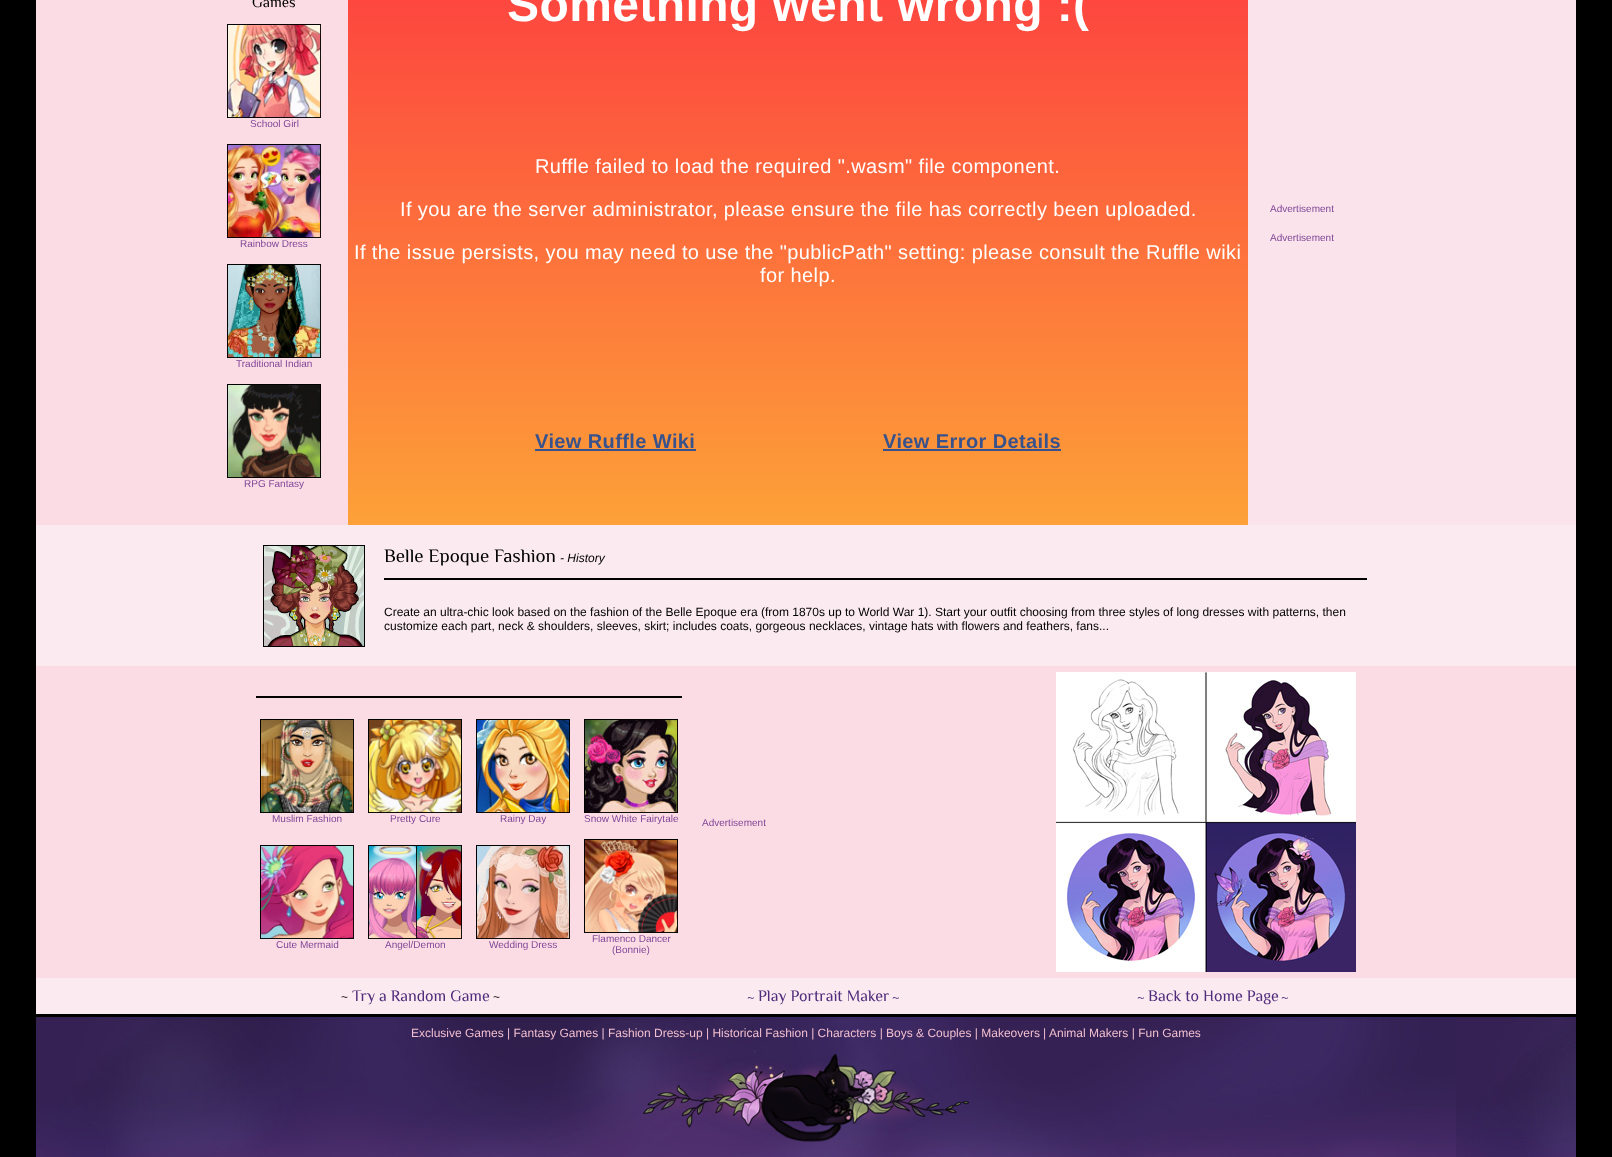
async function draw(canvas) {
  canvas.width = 1612;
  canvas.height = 1157;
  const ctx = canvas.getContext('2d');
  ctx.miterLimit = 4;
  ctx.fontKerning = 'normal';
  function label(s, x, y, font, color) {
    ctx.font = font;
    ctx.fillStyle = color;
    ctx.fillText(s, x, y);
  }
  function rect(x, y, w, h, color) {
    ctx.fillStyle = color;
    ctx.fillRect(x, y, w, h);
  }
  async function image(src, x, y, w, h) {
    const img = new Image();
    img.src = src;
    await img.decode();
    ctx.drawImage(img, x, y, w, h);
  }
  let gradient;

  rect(0, 0, 1612, 1157, '#000');
  rect(36, 0, 312, 525, '#fcdce4');
  label('Games', 252, 7, '15px Philosopher', '#000');
  await image('assets/img1.png', 227, 24, 94, 94);
  label('School Girl', 250, 127, '10px Liberation Sans', '#804798');
  await image('assets/img2.png', 227, 144, 94, 94);
  label('Rainbow Dress', 240, 247, '10px Liberation Sans', '#804798');
  await image('assets/img3.png', 227, 264, 94, 94);
  label('Traditional Indian', 236, 367, '10px Liberation Sans', '#804798');
  await image('assets/img4.png', 227, 384, 94, 94);
  label('RPG Fantasy', 244, 487, '10px Liberation Sans', '#804798');
  gradient = ctx.createLinearGradient(798, -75, 798, 525);
  gradient.addColorStop(0, '#fd3a40');
  gradient.addColorStop(1, '#fda138');
  ctx.fillStyle = gradient;
  ctx.fillRect(348, 0, 900, 525);
  ctx.letterSpacing = '0.4px';
  label('Something went wrong :(', 507, 21, 'bold 48px Liberation Sans', '#fff');
  label('Ruffle failed to load the required ".wasm" file component.', 535, 173, '20px Liberation Sans', '#fff');
  label('If you are the server administrator, please ensure the file has correctly been uploaded.', 400, 216, '20px Liberation Sans', '#fff');
  label('If the issue persists, you may need to use the "publicPath" setting: please consult the Ruffle wiki', 354, 259, '20px Liberation Sans', '#fff');
  label('for help.', 760, 282, '20px Liberation Sans', '#fff');
  label('View Ruffle Wiki', 535, 448, 'bold 20px Liberation Sans', '#37528c');
  rect(535, 449, 161, 2, '#37528c');
  label('View Error Details', 883, 448, 'bold 20px Liberation Sans', '#37528c');
  rect(883, 449, 178, 2, '#37528c');
  rect(1248, 0, 328, 525, '#fae3eb');
  ctx.letterSpacing = '0px';
  label('Advertisement', 1270, 212, '10px Liberation Sans', '#804798');
  label('Advertisement', 1270, 241, '10px Liberation Sans', '#804798');
  rect(36, 525, 1540, 141, '#fbeaf0');
  await image('assets/img5.png', 263, 545, 102, 102);
  label('Belle Epoque Fashion', 384, 562, '19px Philosopher', '#000');
  label('- History', 560, 562, 'italic 12px Liberation Sans', '#000');
  rect(384, 578, 983, 2, '#000');
  label('Create an ultra-chic look based on the fashion of the Belle Epoque era (from 1870s up to World War 1). Start your outfit choosing from three styles of long dresses with patterns, then', 384, 616, '12px Liberation Sans', '#000');
  label('customize each part, neck & shoulders, sleeves, skirt; includes coats, gorgeous necklaces, vintage hats with flowers and feathers, fans...', 384, 630, '12px Liberation Sans', '#000');
  rect(36, 666, 1540, 312, '#fcdce4');
  rect(256, 696, 426, 2, '#000');
  await image('assets/img6.png', 260, 719, 94, 94);
  label('Muslim Fashion', 272, 822, '10px Liberation Sans', '#804798');
  await image('assets/img7.png', 368, 719, 94, 94);
  label('Pretty Cure', 390, 822, '10px Liberation Sans', '#804798');
  await image('assets/img8.png', 476, 719, 94, 94);
  label('Rainy Day', 500, 822, '10px Liberation Sans', '#804798');
  await image('assets/img9.png', 584, 719, 94, 94);
  label('Snow White Fairytale', 584, 822, '10px Liberation Sans', '#804798');
  await image('assets/img10.png', 260, 845, 94, 94);
  label('Cute Mermaid', 276, 948, '10px Liberation Sans', '#804798');
  await image('assets/img11.png', 368, 845, 94, 94);
  label('Angel/Demon', 385, 948, '10px Liberation Sans', '#804798');
  await image('assets/img12.png', 476, 845, 94, 94);
  label('Wedding Dress', 489, 948, '10px Liberation Sans', '#804798');
  await image('assets/img13.png', 584, 839, 94, 94);
  label('Flamenco Dancer', 592, 942, '10px Liberation Sans', '#804798');
  label('(Bonnie)', 612, 953, '10px Liberation Sans', '#804798');
  label('Advertisement', 702, 826, '10px Liberation Sans', '#804798');
  await image('assets/img14.png', 1056, 672, 300, 300);
  rect(36, 978, 1540, 36, '#fbeaf0');
  label('~', 341, 1001, '12px Liberation Sans', '#000');
  label('Try a Random Game', 352, 1001, '16px Philosopher', '#502c7c');
  label('~', 493, 1001, '12px Liberation Sans', '#000');
  label('~', 747, 1001, '12px Philosopher', '#502c7c');
  label('Play Portrait Maker', 758, 1001, '16px Philosopher', '#502c7c');
  label('~', 892, 1001, '12px Philosopher', '#502c7c');
  label('~', 1137, 1001, '12px Philosopher', '#502c7c');
  label('Back to Home Page', 1148, 1001, '16px Philosopher', '#502c7c');
  label('~', 1281, 1001, '12px Philosopher', '#502c7c');
  await image('assets/img15.png', 36, 1015, 1540, 142);
  label('Exclusive Games | Fantasy Games | Fashion Dress-up | Historical Fashion | Characters | Boys & Couples | Makeovers', 411, 1037, '12px Liberation Sans', '#f2bfd0');
  label('|', 1043, 1037, '12px Liberation Sans', '#f2bfd0');
  label('Animal Makers | Fun Games', 1049, 1037, '12px Liberation Sans', '#f2bfd0');
  await image('assets/img16.png', 642, 1050, 328, 92);
}

draw(document.querySelector('canvas'));
